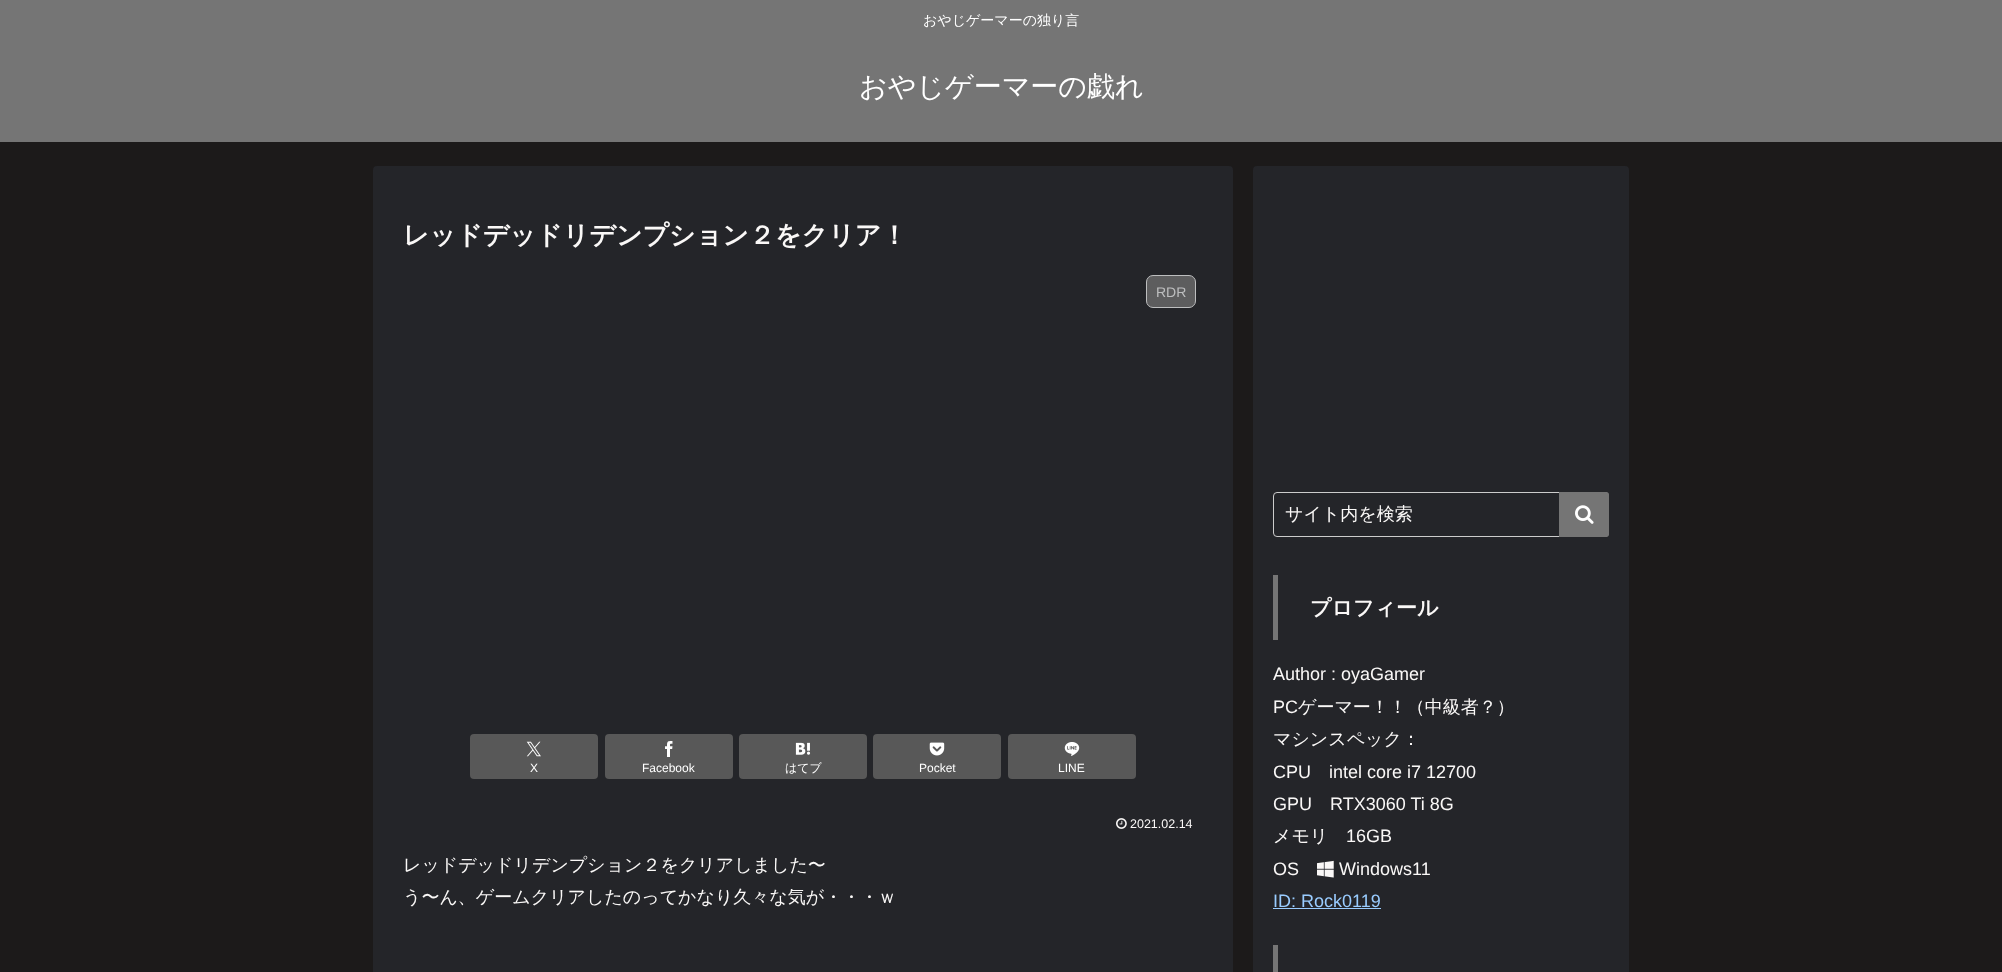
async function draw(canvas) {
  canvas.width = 2002;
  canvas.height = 972;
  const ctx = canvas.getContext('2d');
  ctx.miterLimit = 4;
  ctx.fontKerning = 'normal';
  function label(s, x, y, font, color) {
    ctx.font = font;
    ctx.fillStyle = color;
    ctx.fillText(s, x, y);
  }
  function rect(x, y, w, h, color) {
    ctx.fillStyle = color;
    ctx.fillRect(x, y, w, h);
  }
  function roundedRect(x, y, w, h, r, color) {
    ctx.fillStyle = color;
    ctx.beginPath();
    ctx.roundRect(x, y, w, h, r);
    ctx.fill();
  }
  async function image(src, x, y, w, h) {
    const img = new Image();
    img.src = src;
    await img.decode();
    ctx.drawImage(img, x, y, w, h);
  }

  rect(0, 0, 2002, 972, '#1c1a1a');
  rect(0, 0, 2002, 142, '#757575');
  label('おやじゲーマーの独り言', 923, 25, '500 14px WenQuanYi Zen Hei', '#fff');
  label('おやじゲーマーの戯れ', 859, 96, '500 28px WenQuanYi Zen Hei', '#fff');
  roundedRect(373, 166, 860, 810, 4, '#242529');
  label('レッドデッドリデンプション２をクリア！', 403, 244, 'bold 26px WenQuanYi Zen Hei', '#faf8f7');
  ctx.fillStyle = '#5d5d5e';
  ctx.beginPath();
  ctx.roundRect(1146.5, 275.5, 49, 32, 6.5);
  ctx.fill();
  ctx.strokeStyle = '#bdbebf';
  ctx.stroke();
  label('RDR', 1156, 297, '14px Liberation Sans', '#bdbebf');
  roundedRect(470, 734, 128, 45, 4, '#585858');
  await image('assets/img1.png', 526, 741, 15, 16);
  label('X', 530, 772, '12px Liberation Sans', '#fff');
  roundedRect(605, 734, 128, 45, 4, '#585858');
  await image('assets/img2.png', 665, 741, 8, 16);
  label('Facebook', 642, 772, '12px Liberation Sans', '#fff');
  roundedRect(739, 734, 128, 45, 4, '#585858');
  await image('assets/img3.png', 795, 742, 16, 13);
  label('はてブ', 785, 772, '500 12px WenQuanYi Zen Hei', '#fff');
  roundedRect(873, 734, 128, 45, 4, '#585858');
  await image('assets/img4.png', 929, 742, 16, 14);
  label('Pocket', 919, 772, '12px Liberation Sans', '#fff');
  roundedRect(1008, 734, 128, 45, 4, '#585858');
  await image('assets/img5.png', 1064, 742, 16, 14);
  label('LINE', 1058, 772, '12px Liberation Sans', '#fff');
  await image('assets/img6.png', 1116, 818, 11, 11);
  label('2021.02.14', 1130, 828, '12.5px Liberation Sans', '#faf8f7');
  label('レッドデッドリデンプション２をクリアしました〜', 403, 871, '500 18px WenQuanYi Zen Hei', '#faf8f7');
  label('う〜ん、ゲームクリアしたのってかなり久々な気が・・・ｗ', 403, 903, '500 18px WenQuanYi Zen Hei', '#faf8f7');
  roundedRect(1253, 166, 376, 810, 4, '#242529');
  ctx.beginPath();
  ctx.roundRect(1273.5, 492.5, 335, 44, 3.5);
  ctx.strokeStyle = '#ccc';
  ctx.stroke();
  label('サイト内を検索', 1285, 520, '500 18px WenQuanYi Zen Hei', '#faf8f7');
  ctx.fillStyle = '#757575';
  ctx.beginPath();
  ctx.roundRect(1560, 493, 48, 43, [0, 2, 2, 0]);
  ctx.fill();
  ctx.strokeStyle = '#757575';
  ctx.lineWidth = 2;
  ctx.stroke();
  await image('assets/img7.png', 1575, 505, 19, 19);
  rect(1273, 575, 5, 65, '#757575');
  label('プロフィール', 1310, 615, 'bold 21px WenQuanYi Zen Hei', '#faf8f7');
  label('Author : oyaGamer', 1273, 680, '18px Liberation Sans', '#faf8f7');
  label('PC', 1273, 713, '18px Liberation Sans', '#faf8f7');
  label('ゲーマー！！（中級者？）', 1298, 713, '500 18px WenQuanYi Zen Hei', '#faf8f7');
  label('マシンスペック：', 1273, 745, '500 18px WenQuanYi Zen Hei', '#faf8f7');
  label('CPU', 1273, 778, '18px Liberation Sans', '#faf8f7');
  label('intel core i7 12700', 1329, 778, '18px Liberation Sans', '#faf8f7');
  label('GPU', 1273, 810, '18px Liberation Sans', '#faf8f7');
  label('RTX3060 Ti 8G', 1330, 810, '18px Liberation Sans', '#faf8f7');
  label('メモリ', 1273, 842, '500 18px WenQuanYi Zen Hei', '#faf8f7');
  label('16GB', 1346, 842, '18px Liberation Sans', '#faf8f7');
  label('OS', 1273, 875, '18px Liberation Sans', '#faf8f7');
  await image('assets/img8.png', 1317, 860, 17, 18);
  label('Windows11', 1339, 875, '18px Liberation Sans', '#faf8f7');
  label('ID: Rock0119', 1273, 907, '18px Liberation Sans', '#9cf');
  rect(1273, 908, 108, 1, '#9cf');
  rect(1273, 945, 5, 27, '#757575');
}

draw(document.querySelector('canvas'));
